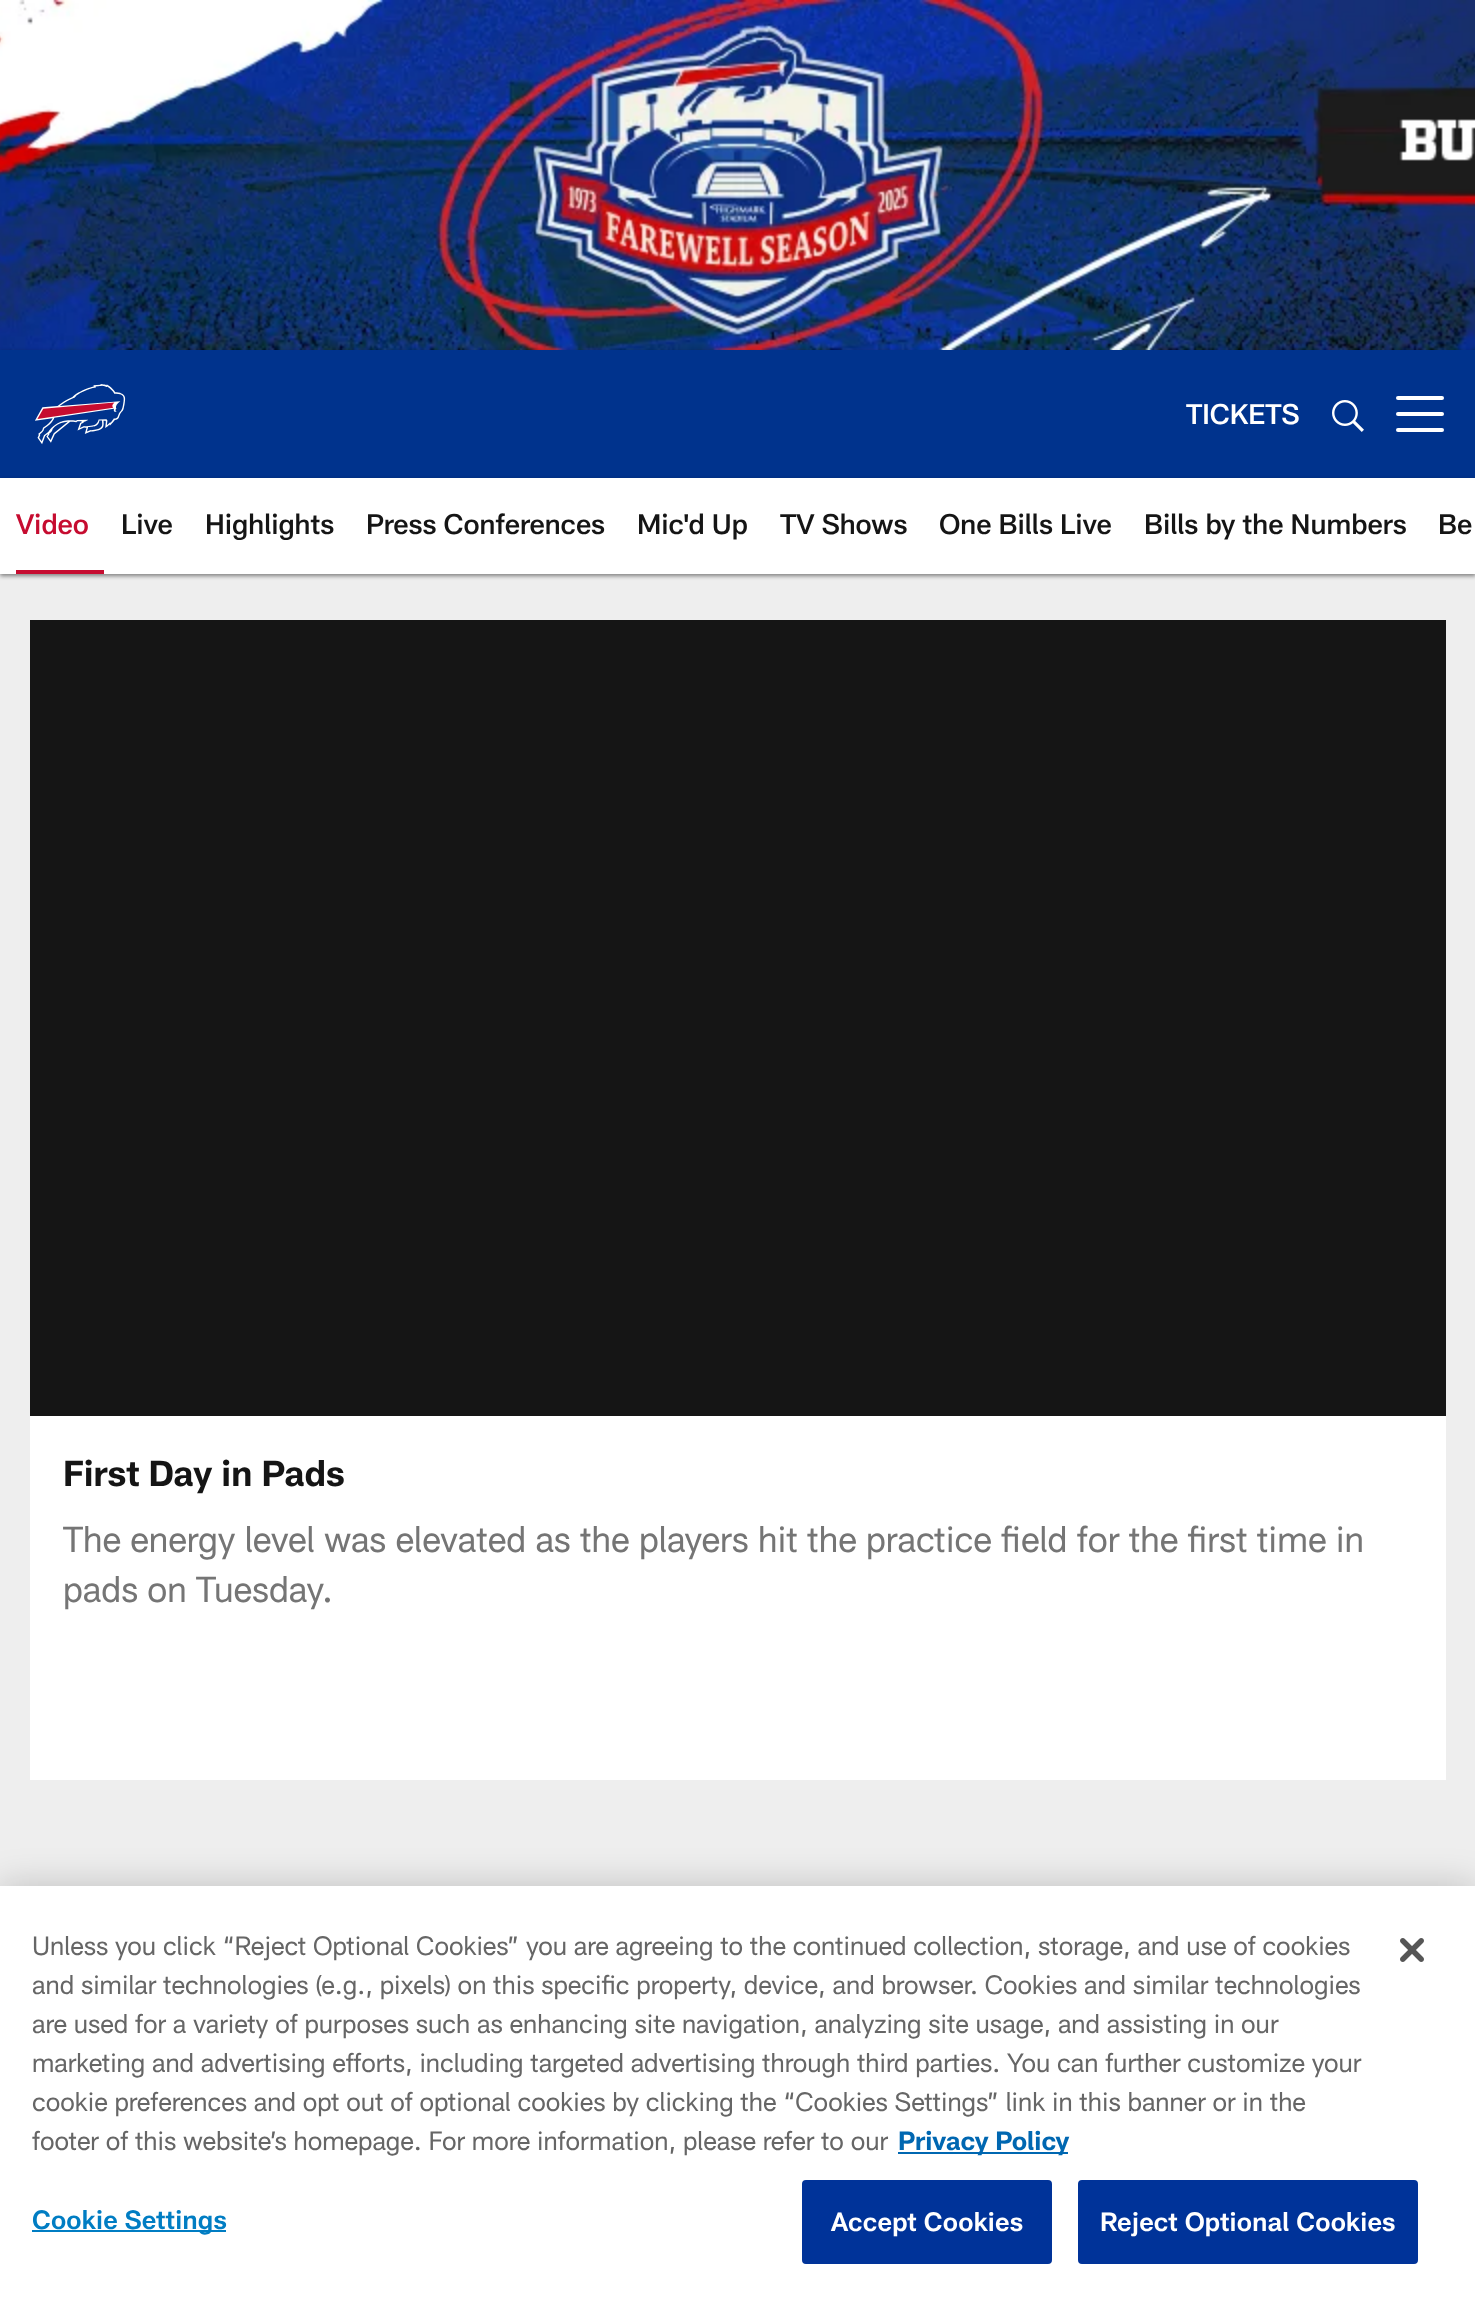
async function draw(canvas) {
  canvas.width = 1475;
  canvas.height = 2302;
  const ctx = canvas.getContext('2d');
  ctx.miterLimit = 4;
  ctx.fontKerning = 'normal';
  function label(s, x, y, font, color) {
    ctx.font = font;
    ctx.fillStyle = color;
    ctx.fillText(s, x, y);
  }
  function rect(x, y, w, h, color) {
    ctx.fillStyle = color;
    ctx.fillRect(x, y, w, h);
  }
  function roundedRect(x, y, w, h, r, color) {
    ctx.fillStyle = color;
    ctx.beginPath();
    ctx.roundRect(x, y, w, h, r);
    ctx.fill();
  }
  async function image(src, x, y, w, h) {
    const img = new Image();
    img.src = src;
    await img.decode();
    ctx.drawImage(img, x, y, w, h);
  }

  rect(0, 0, 1475, 2302, '#eee');
  await image('assets/img1.png', 0, 0, 1475, 350);
  ctx.fillStyle = '#00000078';
  ctx.filter = 'blur(2px)';
  ctx.beginPath();
  ctx.rect(0, 352, 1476, 128);
  ctx.fill();
  ctx.filter = 'none';
  rect(0, 350, 1475, 128, '#00338d');
  await image('assets/img2.png', 35, 384, 91, 61);
  label('TICKETS', 1186, 424, '500 28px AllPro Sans', '#fff');
  await image('assets/img3.png', 1332, 400, 32, 32);
  roundedRect(1396, 412, 48, 4, 2, '#fff');
  roundedRect(1396, 396, 48, 4, 2, '#fff');
  roundedRect(1396, 428, 48, 4, 2, '#fff');
  ctx.fillStyle = '#00000078';
  ctx.filter = 'blur(2px)';
  ctx.beginPath();
  ctx.rect(0, 480, 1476, 96);
  ctx.fill();
  ctx.filter = 'none';
  rect(0, 478, 1475, 96, '#fff');
  rect(16, 570, 88, 4, '#c60c30');
  label('Video', 16, 534, '500 28px AllPro Sans', '#c60c30');
  label('Live', 121, 534, '500 28px AllPro Sans', '#151515');
  label('Highlights', 205, 534, '500 28px AllPro Sans', '#151515');
  label('Press Conferences', 366, 534, '500 28px AllPro Sans', '#151515');
  label('Mic\'d Up', 637, 534, '500 28px AllPro Sans', '#151515');
  label('TV Shows', 780, 534, '500 28px AllPro Sans', '#151515');
  label('One Bills Live', 939, 534, '500 28px AllPro Sans', '#151515');
  label('Bills by the Numbers', 1144, 534, '500 28px AllPro Sans', '#151515');
  label('Be', 1438, 534, '500 28px AllPro Sans', '#151515');
  rect(30, 1416, 1416, 364, '#fff');
  rect(30, 620, 1416, 796, '#151515');
  label('First Day in Pads', 63, 1486, 'bold 35.75px AllPro Sans', '#151515');
  label('The energy level was elevated as the players hit the practice field for the first time in', 63, 1552, '35.75px AllPro Sans', '#757575');
  label('pads on Tuesday.', 63, 1602, '35.75px AllPro Sans', '#757575');
  ctx.fillStyle = '#00000033';
  ctx.filter = 'blur(18px)';
  ctx.beginPath();
  ctx.rect(0, 1886, 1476, 416);
  ctx.fill();
  ctx.filter = 'none';
  rect(0, 1886, 1475, 416, '#fff');
  label('Unless you click “Reject Optional Cookies” you are agreeing to the continued collection, storage, and use of cookies', 32, 1955, '26.02px AllPro Sans', '#666');
  label('and similar technologies (e.g., pixels) on this specific property, device, and browser. Cookies and similar technologies', 32, 1994, '26.02px AllPro Sans', '#666');
  label('are used for a variety of purposes such as enhancing site navigation, analyzing site usage, and assisting in our', 32, 2033, '26.02px AllPro Sans', '#666');
  label('marketing and advertising efforts, including targeted advertising through third parties. You can further customize your', 32, 2072, '26.02px AllPro Sans', '#666');
  label('cookie preferences and opt out of optional cookies by clicking the “Cookies Settings” link in this banner or in the', 32, 2111, '26.02px AllPro Sans', '#666');
  label('footer of this website’s homepage. For more information, please refer to our', 32, 2150, '26.02px AllPro Sans', '#666');
  rect(898, 2152, 170, 2, '#0067b1');
  label('Privacy Policy', 898, 2150, 'bold 26.02px AllPro Sans', '#0067b1');
  rect(32, 2230, 194, 2, '#007dc3');
  ctx.letterSpacing = '0.25px';
  label('Cookie Settings', 32, 2229, '600 26.02px AllPro Sans', '#007dc3');
  ctx.fillStyle = '#039';
  ctx.beginPath();
  ctx.roundRect(803, 2181, 248, 82, 3);
  ctx.fill();
  ctx.strokeStyle = '#039';
  ctx.lineWidth = 2;
  ctx.stroke();
  label('Accept Cookies', 831, 2231, '600 26.02px AllPro Sans', '#fff');
  ctx.fillStyle = '#039';
  ctx.beginPath();
  ctx.roundRect(1079, 2181, 338, 82, 3);
  ctx.fill();
  ctx.stroke();
  label('Reject Optional Cookies', 1100, 2231, '600 26.02px AllPro Sans', '#fff');
  await image('assets/img4.png', 1400, 1938, 24, 24);
}

draw(document.querySelector('canvas'));
